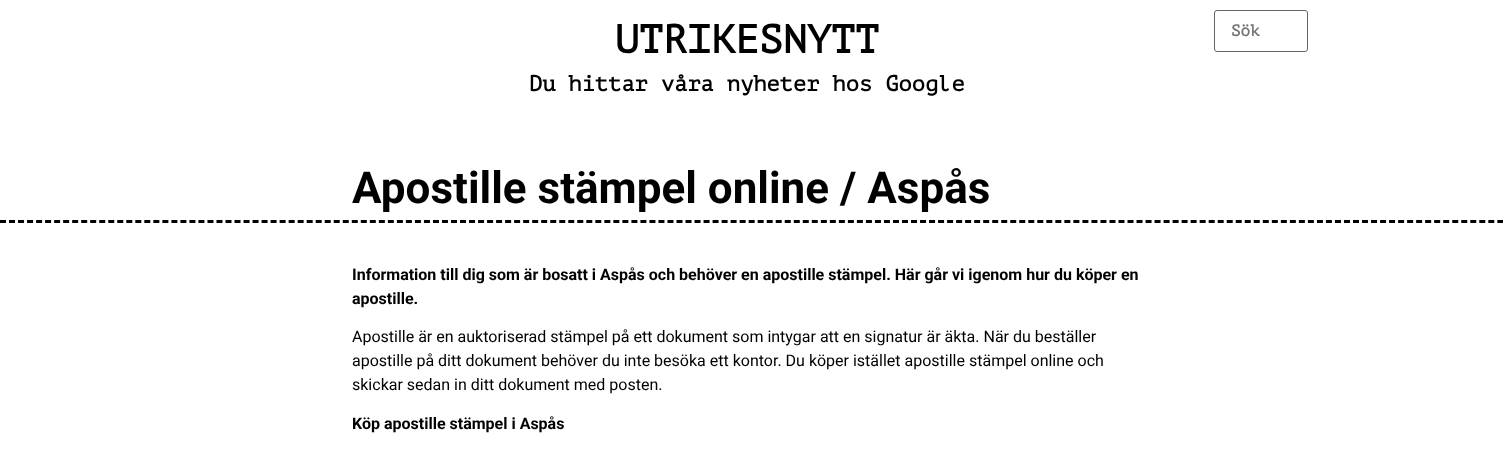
async function draw(canvas) {
  canvas.width = 1503;
  canvas.height = 455;
  const ctx = canvas.getContext('2d');
  ctx.miterLimit = 4;
  ctx.fontKerning = 'normal';
  function label(s, x, y, font, color) {
    ctx.font = font;
    ctx.fillStyle = color;
    ctx.fillText(s, x, y);
  }
  function rect(x, y, w, h, color) {
    ctx.fillStyle = color;
    ctx.fillRect(x, y, w, h);
  }
  let path;

  rect(0, 0, 1503, 455, '#fff');
  label('UTRIKESNYTT', 615, 53, 'bold 40px PT Mono', '#000');
  label('Du hittar våra nyheter hos Google', 529, 91, 'bold 22px PT Mono', '#000');
  ctx.beginPath();
  ctx.roundRect(1214.5, 10.5, 93, 41, 2.5);
  ctx.strokeStyle = '#666';
  ctx.stroke();
  label('Sök', 1231, 36, 'bold 16px PT Mono', '#757575');
  path = new Path2D('M0 221.5H1503');
  ctx.strokeStyle = '#000';
  ctx.lineWidth = 3;
  ctx.setLineDash([6, 3.02]);
  ctx.stroke(path);
  label('Apostille stämpel online / Aspås', 352, 203, 'bold 44px Roboto', '#000');
  label('Information till dig som är bosatt i Aspås och behöver en apostille stämpel. Här går vi igenom hur du köper en', 352, 280, 'bold 16px Roboto', '#000');
  label('apostille.', 352, 304, 'bold 16px Roboto', '#000');
  label('Apostille är en auktoriserad stämpel på ett dokument som intygar att en signatur är äkta. När du beställer', 352, 342, '16px Roboto', '#000');
  label('apostille på ditt dokument behöver du inte besöka ett kontor. Du köper istället apostille stämpel online och', 352, 366, '16px Roboto', '#000');
  label('skickar sedan in ditt dokument med posten.', 352, 390, '16px Roboto', '#000');
  label('Köp apostille stämpel i Aspås', 352, 429, 'bold 16px Roboto', '#000');
}

draw(document.querySelector('canvas'));
